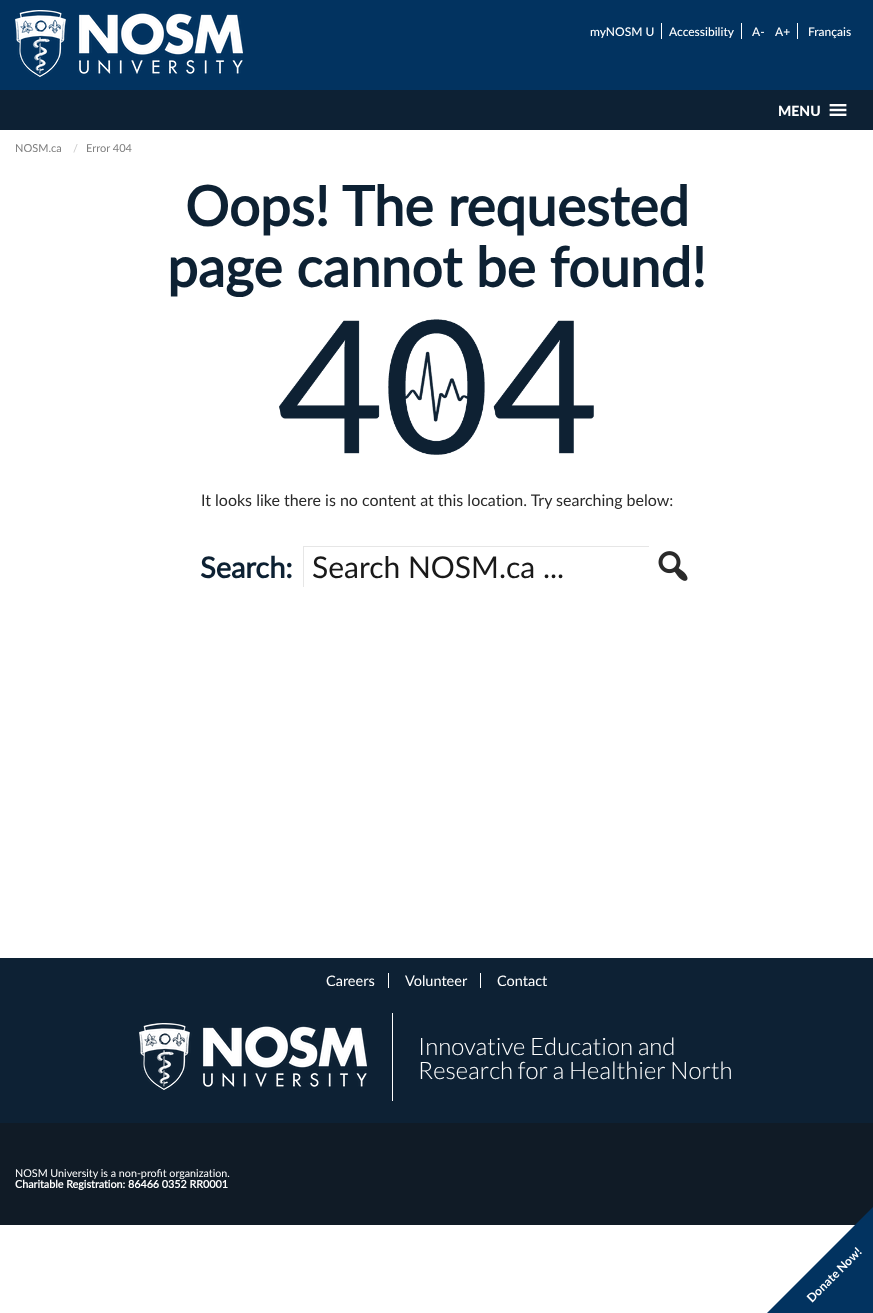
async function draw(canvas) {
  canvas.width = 873;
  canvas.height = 1313;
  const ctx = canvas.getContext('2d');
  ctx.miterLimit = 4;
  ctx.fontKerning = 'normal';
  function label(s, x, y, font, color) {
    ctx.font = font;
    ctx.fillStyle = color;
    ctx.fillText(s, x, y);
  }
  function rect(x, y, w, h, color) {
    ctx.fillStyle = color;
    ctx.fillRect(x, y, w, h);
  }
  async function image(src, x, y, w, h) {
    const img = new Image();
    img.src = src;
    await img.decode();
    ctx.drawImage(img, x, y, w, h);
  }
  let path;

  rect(0, 0, 873, 1313, '#fff');
  rect(0, 0, 873, 90, '#023360');
  await image('assets/img1.png', 15, 10, 228, 67);
  rect(661, 23, 1, 16, '#fff');
  label('myNOSM U', 590, 36, '500 12px Lato', '#fff');
  rect(741, 23, 1, 16, '#fff');
  label('Accessibility', 669, 36, '500 12px Lato', '#fff');
  label('A-', 752, 36, '500 12px Lato', '#fff');
  rect(797, 23, 1, 16, '#fff');
  label('A+', 775, 36, '500 12px Lato', '#fff');
  label('Français', 808, 36, '500 12px Lato', '#fff');
  rect(0, 90, 873, 40, '#0d2134');
  label('MENU', 778, 116, '900 14px Lato', '#fff');
  await image('assets/img2.png', 829, 104, 18, 12);
  label('NOSM.ca', 15, 152, '11px Lato', '#7e7e7e');
  label('/', 73, 152, '11px Lato', '#ccc');
  label('Error 404', 86, 152, '11px Lato', '#7e7e7e');
  label('Oops! The requested', 185, 226, 'bold 55px Lato', '#0d2133');
  label('page cannot be found!', 167, 287, 'bold 55px Lato', '#0d2133');
  await image('assets/img3.png', 279, 319, 315, 136);
  label('It looks like there is no content at this location. Try searching below:', 201, 506, '16px Lato', '#2a2a2a');
  label('Search:', 200, 578, 'bold 29px Lato', '#0d2133');
  ctx.save();
  ctx.beginPath();
  ctx.rect(303, 546, 346, 41);
  ctx.clip();
  ctx.fillStyle = '#e6e6e6';
  path = new Path2D('M204 447H748V686H204ZM304 547H650V588H304Z');
  ctx.fill(path, 'evenodd');
  ctx.restore();
  label('Search NOSM.ca ...', 312, 578, '30px Lato', '#191919');
  await image('assets/img4.png', 658, 551, 30, 30);
  rect(0, 958, 873, 165, '#0d2134');
  rect(388, 973, 1, 15, '#fff');
  label('Careers', 326, 986, '14.5px Lato', '#fff');
  rect(480, 973, 1, 15, '#fff');
  label('Volunteer', 405, 986, '14.5px Lato', '#fff');
  label('Contact', 497, 986, '14.5px Lato', '#fff');
  await image('assets/img5.png', 139, 1023, 228, 67);
  rect(392, 1013, 1, 88, '#fff');
  label('Innovative Education and', 418, 1055, '300 24px Lato', '#fff');
  label('Research for a Healthier North', 418, 1079, '300 24px Lato', '#fff');
  rect(0, 1123, 873, 102, '#101b26');
  label('NOSM University is a non-profit organization.', 15, 1177, '10.75px Lato', '#fff');
  label('Charitable Registration: 86466 0352 RR0001', 15, 1188, 'bold 10.75px Lato', '#fff');
  ctx.fillStyle = '#023360';
  path = new Path2D('M767 1313L873 1207L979 1313L873 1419Z');
  ctx.fill(path);
  ctx.font = 'bold 12px "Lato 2"';
  ctx.fillStyle = '#fff';
  ctx.save();
  ctx.translate(812, 1303);
  ctx.rotate(-45 * Math.PI / 180);
  ctx.fillText('Donate Now!', 0, 0);
  ctx.restore();
}

draw(document.querySelector('canvas'));
